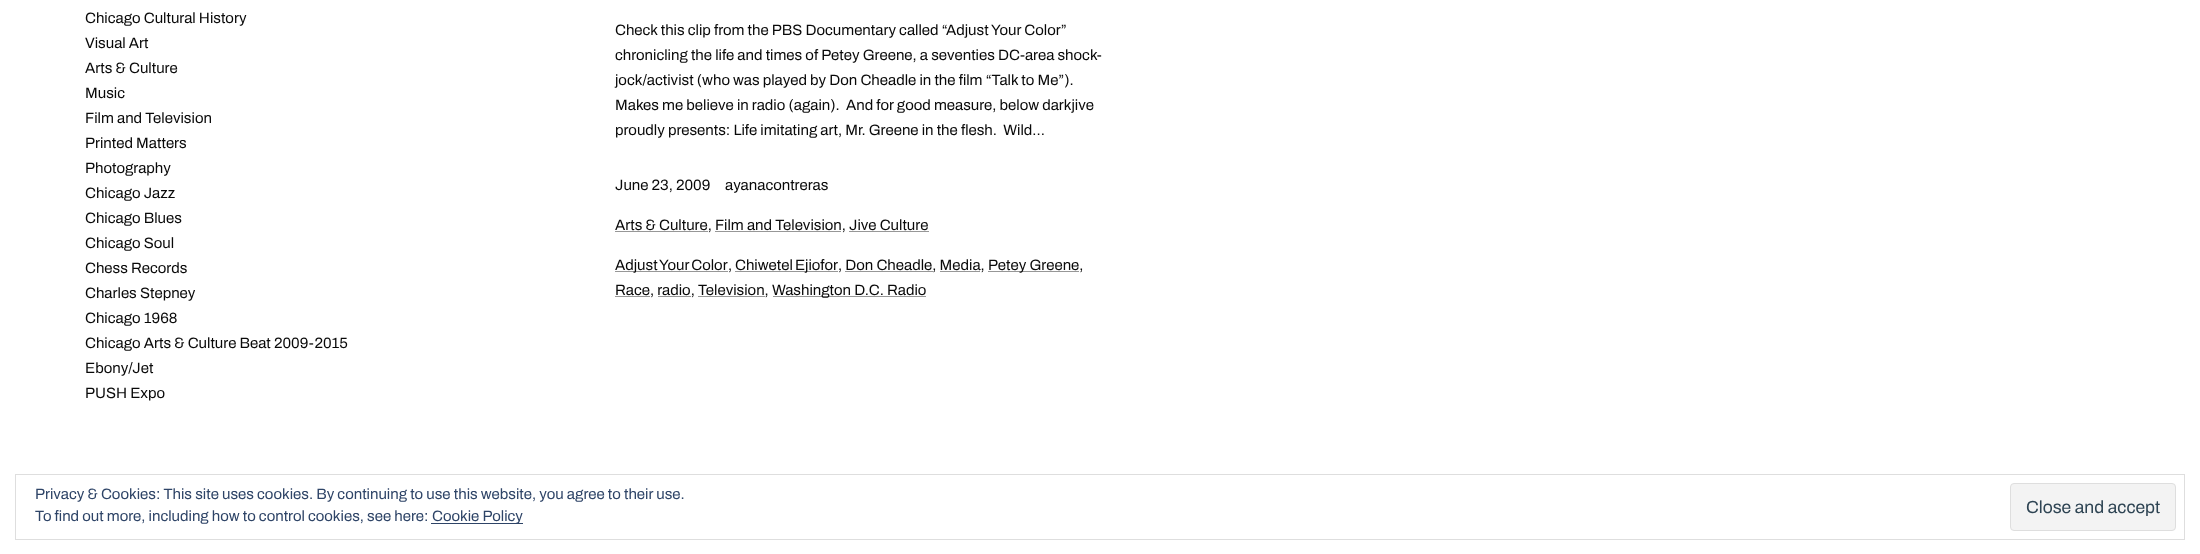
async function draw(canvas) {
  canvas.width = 2200;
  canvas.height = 554;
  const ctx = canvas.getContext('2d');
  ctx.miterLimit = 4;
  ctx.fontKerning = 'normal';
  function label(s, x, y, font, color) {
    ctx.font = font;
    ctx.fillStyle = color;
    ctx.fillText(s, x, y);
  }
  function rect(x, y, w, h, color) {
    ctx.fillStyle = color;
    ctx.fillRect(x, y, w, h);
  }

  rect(0, 0, 2200, 554, '#fff');
  label('Chicago Cultural History', 85, 23, '15px Archivo', '#090909');
  label('Visual Art', 85, 48, '15px Archivo', '#090909');
  label('Arts & Culture', 85, 73, '15px Archivo', '#090909');
  label('Music', 85, 98, '15px Archivo', '#090909');
  label('Film and Television', 85, 123, '15px Archivo', '#090909');
  label('Printed Matters', 85, 148, '15px Archivo', '#090909');
  label('Photography', 85, 173, '15px Archivo', '#090909');
  label('Chicago Jazz', 85, 198, '15px Archivo', '#090909');
  label('Chicago Blues', 85, 223, '15px Archivo', '#090909');
  label('Chicago Soul', 85, 248, '15px Archivo', '#090909');
  label('Chess Records', 85, 273, '15px Archivo', '#090909');
  label('Charles Stepney', 85, 298, '15px Archivo', '#090909');
  label('Chicago 1968', 85, 323, '15px Archivo', '#090909');
  label('Chicago Arts & Culture Beat 2009-2015', 85, 348, '15px Archivo', '#090909');
  label('Ebony/Jet', 85, 373, '15px Archivo', '#090909');
  label('PUSH Expo', 85, 398, '15px Archivo', '#090909');
  label('Check this clip from the PBS Documentary called “Adjust Your Color”', 615, 35, '15px Archivo', '#090909');
  label('chronicling the life and times of Petey Greene, a seventies DC-area shock-', 615, 60, '15px Archivo', '#090909');
  label('jock/activist (who was played by Don Cheadle in the film “Talk to Me”).', 615, 85, '15px Archivo', '#090909');
  label('Makes me believe in radio (again).  And for good measure, below darkjive', 615, 110, '15px Archivo', '#090909');
  label('proudly presents: Life imitating art, Mr. Greene in the flesh.  Wild…', 615, 135, '15px Archivo', '#090909');
  label('June 23, 2009', 615, 190, '15px Archivo', '#090909');
  label('ayanacontreras', 725, 190, '15px Archivo', '#090909');
  rect(615, 231, 93, 1, '#979797');
  label('Arts & Culture, Film and Television, Jive Culture', 615, 230, '15px Archivo', '#090909');
  rect(715, 231, 126, 1, '#979797');
  rect(849, 231, 80, 1, '#979797');
  rect(615, 271, 113, 1, '#979797');
  ctx.wordSpacing = '-1px';
  label('Adjust Your Color', 615, 270, '15px Archivo', '#090909');
  ctx.wordSpacing = '0px';
  label(',', 728, 270, '15px Archivo', '#090909');
  rect(735, 271, 103, 1, '#979797');
  ctx.wordSpacing = '-1px';
  label('Chiwetel Ejiofor', 735, 270, '15px Archivo', '#090909');
  ctx.wordSpacing = '0px';
  label(', Don Cheadle, Media,', 838, 270, '15px Archivo', '#090909');
  rect(988, 271, 91, 1, '#979797');
  label('Petey Greene,', 988, 270, '15px Archivo', '#090909');
  rect(845, 271, 88, 1, '#979797');
  rect(940, 271, 40, 1, '#979797');
  rect(615, 296, 35, 1, '#979797');
  label('Race, radio, Television,', 615, 295, '15px Archivo', '#090909');
  rect(773, 296, 153, 1, '#979797');
  label('Washington D.C. Radio', 772, 295, '15px Archivo', '#090909');
  rect(658, 296, 33, 1, '#979797');
  rect(698, 296, 67, 1, '#979797');
  ctx.strokeStyle = '#dedede';
  ctx.strokeRect(15.5, 474.5, 2169, 65);
  label('Privacy & Cookies: This site uses cookies. By continuing to use this website, you agree to their use.', 35, 499, '15px Archivo', '#2e4467');
  label('To find out more, including how to control cookies, see here:', 35, 521, '15px Archivo', '#2e4467');
  rect(431, 523, 92, 1, '#2e4467');
  label('Cookie Policy', 432, 521, '15px Archivo', '#2e4467');
  ctx.fillStyle = '#f3f3f3';
  ctx.beginPath();
  ctx.roundRect(2010.5, 483.5, 165, 47, 3.5);
  ctx.fill();
  ctx.stroke();
  label('Close and accept', 2026, 513, '17.5px Archivo', '#2e4453');
}

draw(document.querySelector('canvas'));
